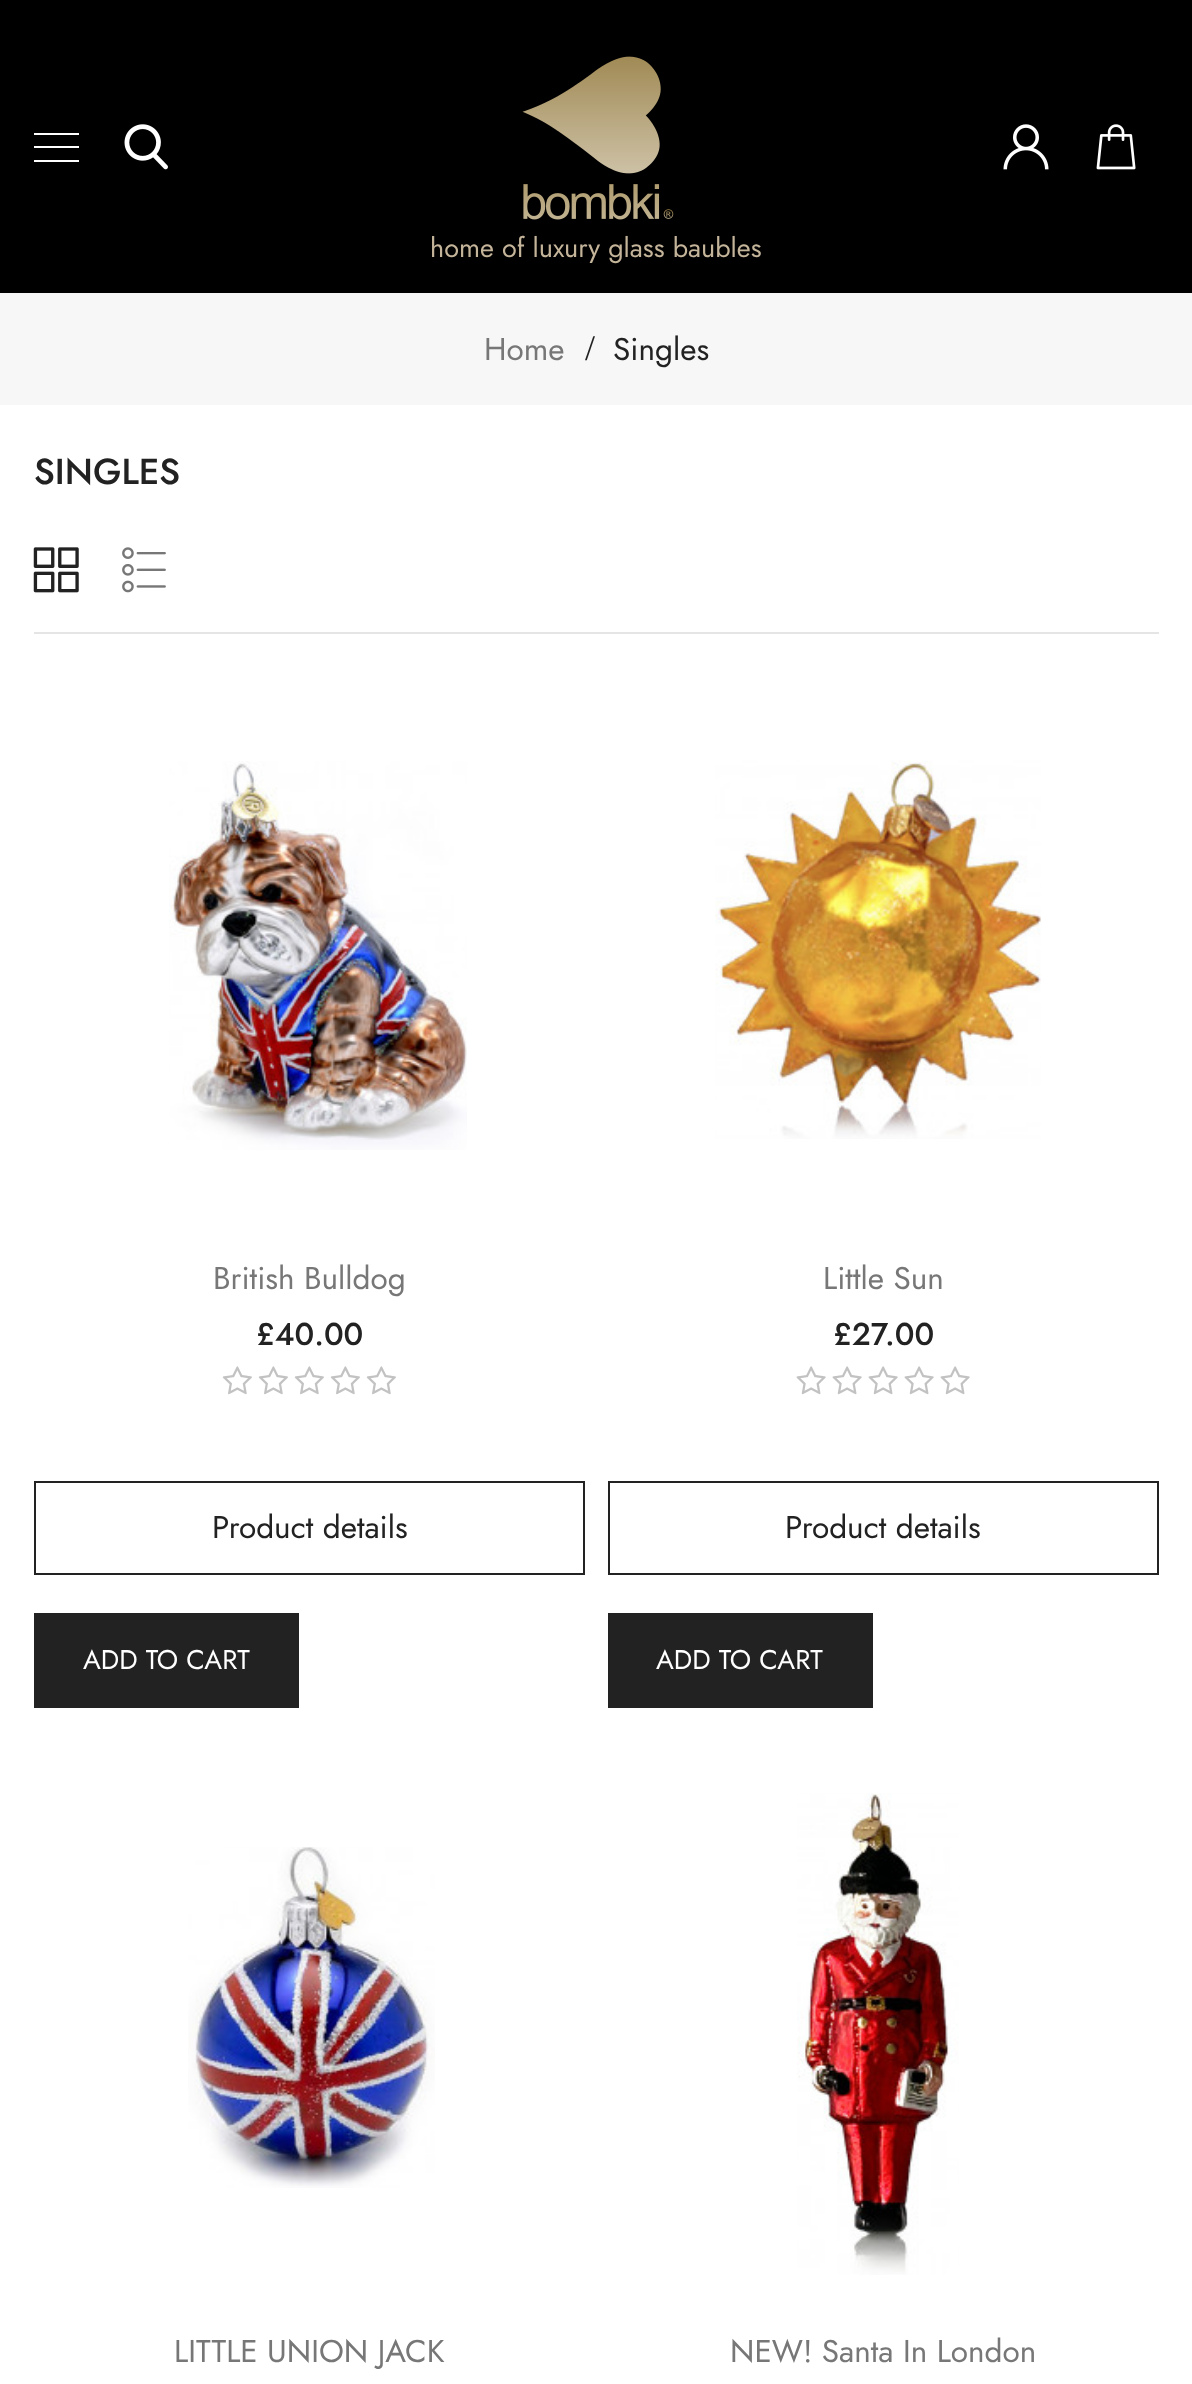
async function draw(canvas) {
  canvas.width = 1192;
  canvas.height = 2384;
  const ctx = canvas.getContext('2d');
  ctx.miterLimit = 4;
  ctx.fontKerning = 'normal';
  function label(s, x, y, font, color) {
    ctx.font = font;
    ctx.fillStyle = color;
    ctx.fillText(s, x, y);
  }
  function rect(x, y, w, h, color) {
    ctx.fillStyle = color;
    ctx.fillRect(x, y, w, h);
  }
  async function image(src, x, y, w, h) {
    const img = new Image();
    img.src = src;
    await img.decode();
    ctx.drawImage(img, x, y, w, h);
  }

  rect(0, 0, 1192, 2384, '#fff');
  rect(0, 0, 1192, 293, '#000');
  rect(34, 146, 45, 2, '#fff');
  rect(34, 133, 45, 2, '#fff');
  rect(34, 160, 45, 2, '#fff');
  await image('assets/img1.png', 124, 124, 44, 46);
  await image('assets/img2.png', 1003, 124, 46, 46);
  await image('assets/img3.png', 1096, 124, 40, 46);
  await image('assets/img4.png', 522, 56, 152, 164);
  label('home of luxury glass baubles', 430, 257, '27px Jost', '#c4b49a');
  rect(0, 293, 1192, 112, '#f7f7f7');
  label('Home', 484, 360, '31.5px Jost', '#777');
  label('/', 585, 360, '36px Liberation Serif', '#222');
  label('Singles', 613, 360, '31.5px Jost', '#222');
  label('SINGLES', 34, 484, '500 36px Jost', '#222');
  rect(34, 632, 1125, 2, '#e5e5e5');
  await image('assets/img5.png', 33, 547, 46, 46);
  await image('assets/img6.png', 122, 547, 44, 46);
  await image('assets/img7.png', 169, 761, 298, 389);
  label('British Bulldog', 213, 1289, '31.5px Jost', '#777');
  label('£40.00', 256, 1345, '500 31.5px Jost', '#222');
  await image('assets/img8.png', 222, 1366, 30, 29);
  await image('assets/img8.png', 258, 1366, 30, 29);
  await image('assets/img8.png', 294, 1366, 30, 29);
  await image('assets/img8.png', 330, 1366, 30, 29);
  await image('assets/img8.png', 366, 1366, 30, 29);
  ctx.strokeStyle = '#222';
  ctx.lineWidth = 2;
  ctx.strokeRect(35, 1482, 549, 92);
  label('Product details', 212, 1538, '31.5px Jost', '#222');
  rect(34, 1613, 265, 95, '#222');
  label('ADD TO CART', 83, 1669, '27px Jost', '#fff');
  await image('assets/img9.png', 715, 760, 326, 379);
  label('Little Sun', 823, 1289, '31.5px Jost', '#777');
  label('£27.00', 833, 1345, '500 31.5px Jost', '#222');
  await image('assets/img10.png', 796, 1366, 30, 29);
  await image('assets/img10.png', 832, 1366, 30, 29);
  await image('assets/img10.png', 868, 1366, 30, 29);
  await image('assets/img10.png', 904, 1366, 30, 29);
  await image('assets/img10.png', 940, 1366, 30, 29);
  ctx.strokeRect(609, 1482, 549, 92);
  label('Product details', 785, 1538, '31.5px Jost', '#222');
  rect(608, 1613, 265, 95, '#222');
  label('ADD TO CART', 656, 1669, '27px Jost', '#fff');
  await image('assets/img11.png', 188, 1847, 247, 341);
  label('LITTLE UNION JACK', 174, 2362, '31.5px Jost', '#777');
  await image('assets/img12.png', 797, 1793, 162, 482);
  label('NEW! Santa In London', 730, 2362, '31.5px Jost', '#777');
}

draw(document.querySelector('canvas'));
